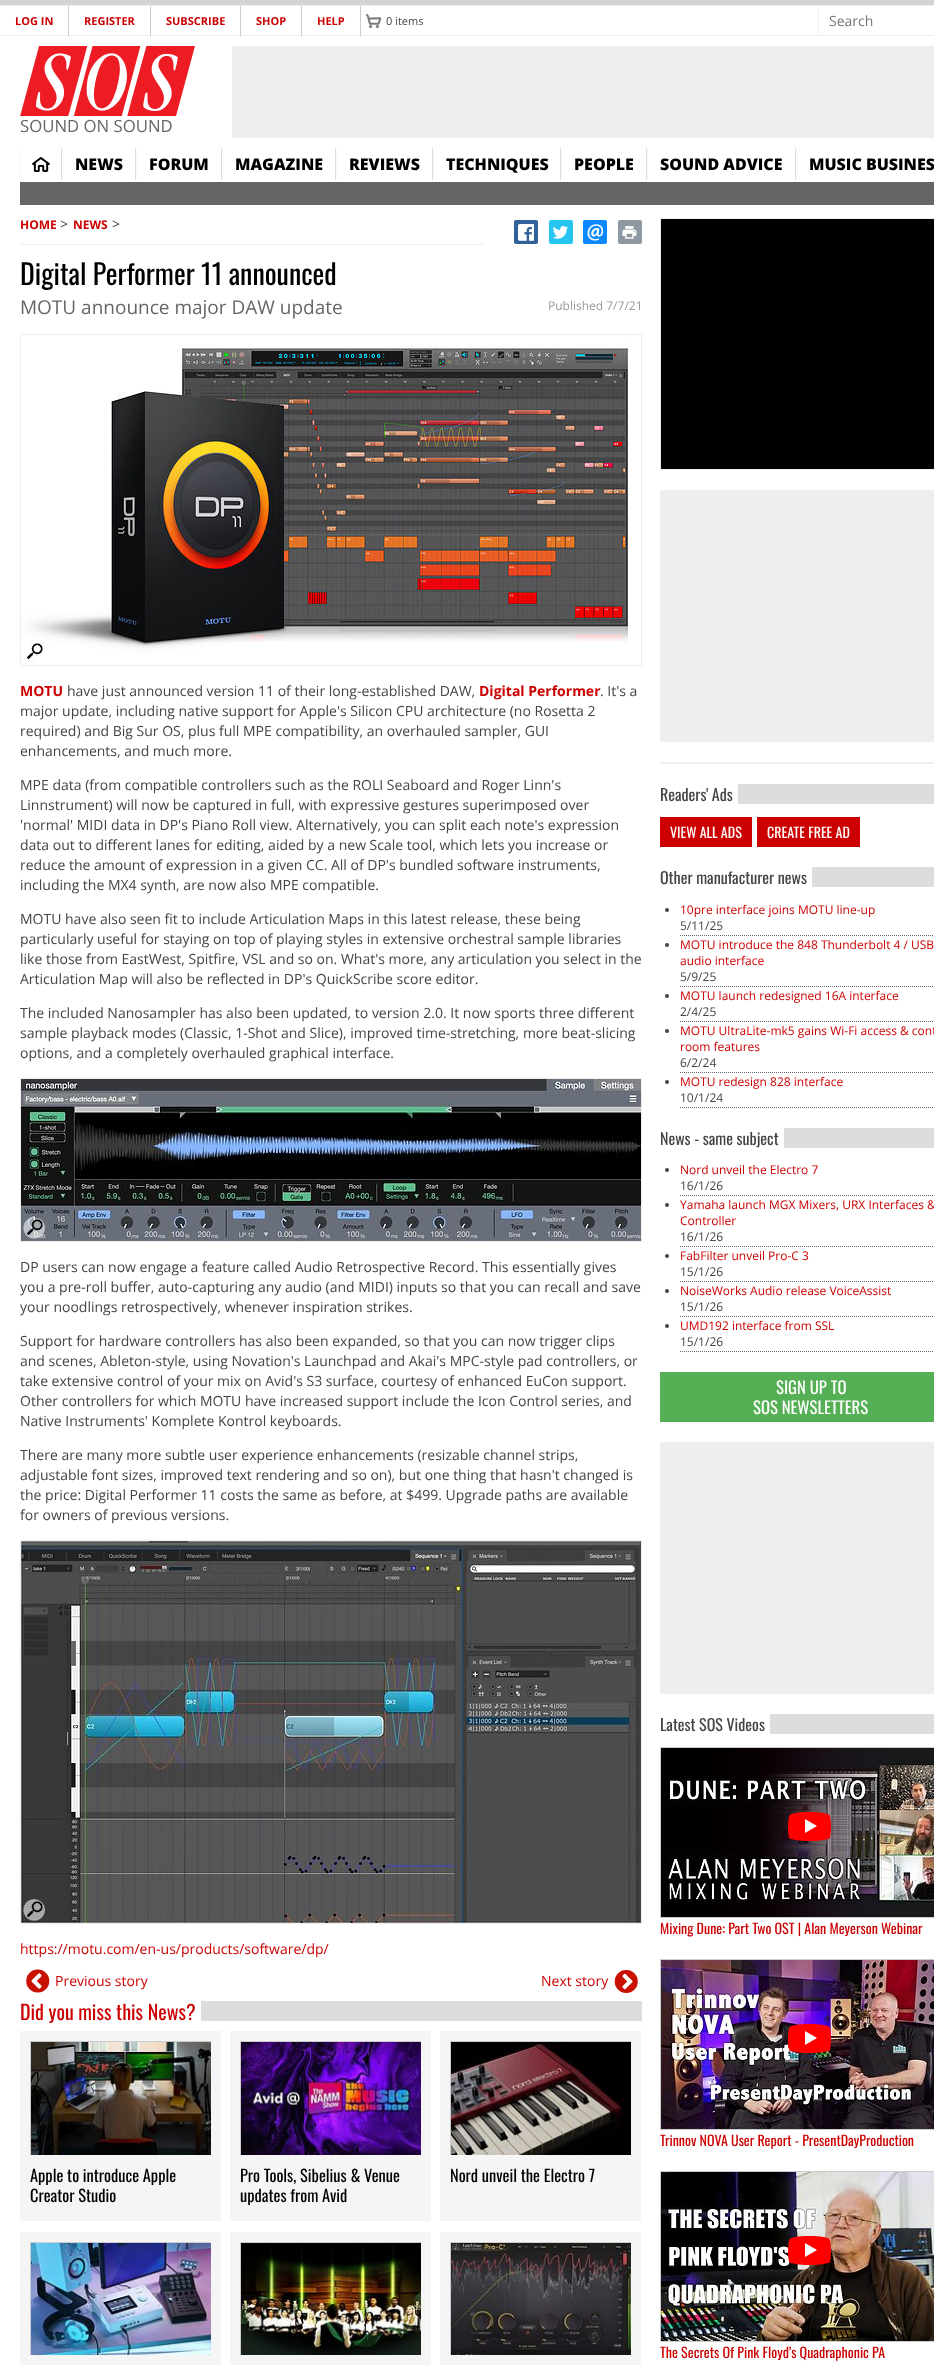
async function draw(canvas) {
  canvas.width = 934;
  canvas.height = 2365;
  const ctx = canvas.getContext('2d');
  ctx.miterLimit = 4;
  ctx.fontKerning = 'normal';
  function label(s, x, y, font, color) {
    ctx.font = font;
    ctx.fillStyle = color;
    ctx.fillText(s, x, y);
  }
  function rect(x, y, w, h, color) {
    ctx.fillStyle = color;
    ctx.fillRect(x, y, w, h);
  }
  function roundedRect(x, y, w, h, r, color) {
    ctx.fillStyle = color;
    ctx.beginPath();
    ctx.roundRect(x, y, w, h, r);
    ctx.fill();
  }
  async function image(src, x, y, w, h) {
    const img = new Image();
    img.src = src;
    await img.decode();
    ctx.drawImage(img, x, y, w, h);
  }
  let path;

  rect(0, 0, 934, 2365, '#d3d3d3');
  rect(0, 6, 934, 2359, '#fff');
  rect(0, 5, 934, 1, '#eee');
  rect(0, 35, 934, 1, '#eee');
  rect(68, 6, 1, 30, '#ccc');
  label('LOG IN', 15, 25, 'bold 11px Open Sans', '#c00');
  rect(150, 6, 1, 30, '#ccc');
  label('REGISTER', 84, 25, 'bold 11px Open Sans', '#c00');
  rect(240, 6, 1, 30, '#ccc');
  label('SUBSCRIBE', 166, 25, 'bold 11px Open Sans', '#c00');
  rect(301, 6, 1, 30, '#ccc');
  label('SHOP', 256, 25, 'bold 11px Open Sans', '#c00');
  rect(360, 6, 1, 30, '#ccc');
  label('HELP', 317, 25, 'bold 11px Open Sans', '#c00');
  await image('assets/img1.png', 366, 14, 16, 14);
  label('0 items', 386, 25, '11px Open Sans', '#444');
  rect(818, 6, 1, 29, '#eee');
  label('Search', 829, 26, '14px Open Sans', '#757575');
  await image('assets/img2.png', 20, 46, 175, 70);
  label('SOUND ON SOUND', 20, 132, '16.75px Open Sans', '#666');
  rect(232, 46, 702, 92, '#eee');
  rect(61, 148, 1, 32, '#ddd');
  rect(20, 148, 1, 32, '#f9f9f9');
  await image('assets/img3.png', 32, 157, 18, 15);
  rect(135, 148, 1, 32, '#ddd');
  rect(62, 148, 1, 32, '#f9f9f9');
  label('NEWS', 75, 170, '800 16px Open Sans', '#000');
  rect(221, 148, 1, 32, '#ddd');
  rect(136, 148, 1, 32, '#f9f9f9');
  label('FORUM', 149, 170, '800 16px Open Sans', '#000');
  rect(335, 148, 1, 32, '#ddd');
  rect(222, 148, 1, 32, '#f9f9f9');
  label('MAGAZINE', 235, 170, '800 16px Open Sans', '#000');
  rect(432, 148, 1, 32, '#ddd');
  rect(336, 148, 1, 32, '#f9f9f9');
  label('REVIEWS', 349, 170, '800 16px Open Sans', '#000');
  rect(560, 148, 1, 32, '#ddd');
  rect(433, 148, 1, 32, '#f9f9f9');
  label('TECHNIQUES', 446, 170, '800 16px Open Sans', '#000');
  rect(646, 148, 1, 32, '#ddd');
  rect(561, 148, 1, 32, '#f9f9f9');
  label('PEOPLE', 574, 170, '800 16px Open Sans', '#000');
  rect(795, 148, 1, 32, '#ddd');
  rect(647, 148, 1, 32, '#f9f9f9');
  label('SOUND ADVICE', 660, 170, '800 16px Open Sans', '#000');
  rect(796, 148, 1, 32, '#f9f9f9');
  label('MUSIC BUSINES', 809, 170, '800 16px Open Sans', '#000');
  rect(20, 182, 914, 23, '#666');
  rect(20, 244, 464, 1, '#eee');
  label('HOME', 20, 229, 'bold 12px Open Sans', '#c00');
  label('>', 60, 229, '14px Open Sans', '#444');
  label('NEWS', 73, 229, 'bold 12px Open Sans', '#c00');
  label('>', 112, 229, '14px Open Sans', '#444');
  roundedRect(514, 220, 24, 24, 2, '#306199');
  await image('assets/img4.png', 518, 224, 16, 17);
  roundedRect(549, 220, 24, 24, 2, '#26c4f1');
  await image('assets/img5.png', 552, 226, 16, 13);
  roundedRect(583, 220, 24, 24, 2, '#0a88ff');
  await image('assets/img6.png', 587, 224, 16, 17);
  roundedRect(618, 220, 24, 24, 2, '#8d98a2');
  await image('assets/img7.png', 622, 226, 15, 13);
  label('Digital Performer 11 announced', 20, 285, '28px Oswald', '#000');
  label('MOTU announce major DAW update', 20, 314, '19px Open Sans', '#666');
  ctx.strokeStyle = '#eee';
  ctx.strokeRect(20.5, 334.5, 621, 331);
  await image('assets/img8.png', 21, 343, 608, 320);
  label('MOTU', 20, 696, 'bold 14px Open Sans', '#c00');
  label('have just announced version 11 of their long-established DAW,', 67, 696, '14px Open Sans', '#444');
  label('Digital Performer', 479, 696, 'bold 14px Open Sans', '#c00');
  label('. It\'s a', 600, 696, '14px Open Sans', '#444');
  label('major update, including native support for Apple\'s Silicon CPU architecture (no Rosetta 2', 20, 716, '14px Open Sans', '#444');
  label('required) and Big Sur OS, plus full MPE compatibility, an overhauled sampler, GUI', 20, 736, '14px Open Sans', '#444');
  label('enhancements, and much more.', 20, 756, '14px Open Sans', '#444');
  label('MPE data (from compatible controllers such as the ROLI Seaboard and Roger Linn\'s', 20, 790, '14px Open Sans', '#444');
  label('Linnstrument) will now be captured in full, with expressive gestures superimposed over', 20, 810, '14px Open Sans', '#444');
  label('\'normal\' MIDI data in DP\'s Piano Roll view. Alternatively, you can split each note\'s expression', 20, 830, '14px Open Sans', '#444');
  label('data out to different lanes for editing, aided by a new Scale tool, which lets you increase or', 20, 850, '14px Open Sans', '#444');
  label('reduce the amount of expression in a given CC. All of DP\'s bundled software instruments,', 20, 870, '14px Open Sans', '#444');
  label('including the MX4 synth, are now also MPE compatible.', 20, 890, '14px Open Sans', '#444');
  label('MOTU have also seen fit to include Articulation Maps in this latest release, these being', 20, 924, '14px Open Sans', '#444');
  label('particularly useful for staying on top of playing styles in extensive orchestral sample libraries', 20, 944, '14px Open Sans', '#444');
  label('like those from EastWest, Spitfire, VSL and so on. What\'s more, any articulation you select in the', 20, 964, '14px Open Sans', '#444');
  label('Articulation Map will also be reflected in DP\'s QuickScribe score editor.', 20, 984, '14px Open Sans', '#444');
  label('The included Nanosampler has also been updated, to version 2.0. It now sports three different', 20, 1018, '14px Open Sans', '#444');
  label('sample playback modes (Classic, 1-Shot and Slice), improved time-stretching, more beat-slicing', 20, 1038, '14px Open Sans', '#444');
  label('options, and a completely overhauled graphical interface.', 20, 1058, '14px Open Sans', '#444');
  ctx.strokeRect(20.5, 1078.5, 621, 163);
  await image('assets/img9.png', 21, 1079, 620, 162);
  label('DP users can now engage a feature called Audio Retrospective Record. This essentially gives', 20, 1272, '14px Open Sans', '#444');
  label('you a pre-roll buffer, auto-capturing any audio (and MIDI) inputs so that you can recall and save', 20, 1292, '14px Open Sans', '#444');
  label('your noodlings retrospectively, whenever inspiration strikes.', 20, 1312, '14px Open Sans', '#444');
  label('Support for hardware controllers has also been expanded, so that you can now trigger clips', 20, 1346, '14px Open Sans', '#444');
  label('and scenes, Ableton-style, using Novation\'s Launchpad and Akai\'s MPC-style pad controllers, or', 20, 1366, '14px Open Sans', '#444');
  label('take extensive control of your mix on Avid\'s S3 surface, courtesy of enhanced EuCon support.', 20, 1386, '14px Open Sans', '#444');
  label('Other controllers for which MOTU have increased support include the Icon Control series, and', 20, 1406, '14px Open Sans', '#444');
  label('Native Instruments\' Komplete Kontrol keyboards.', 20, 1426, '14px Open Sans', '#444');
  label('There are many more subtle user experience enhancements (resizable channel strips,', 20, 1460, '14px Open Sans', '#444');
  label('adjustable font sizes, improved text rendering and so on), but one thing that hasn\'t changed is', 20, 1480, '14px Open Sans', '#444');
  label('the price: Digital Performer 11 costs the same as before, at $499. Upgrade paths are available', 20, 1500, '14px Open Sans', '#444');
  label('for owners of previous versions.', 20, 1520, '14px Open Sans', '#444');
  ctx.strokeRect(20.5, 1540.5, 621, 383);
  await image('assets/img10.png', 21, 1541, 620, 382);
  label('https://motu.com/en-us/products/software/dp/', 20, 1954, '14px Open Sans', '#c00');
  label('Published 7/7/21', 548, 310, '12px Open Sans', '#999');
  await image('assets/img11.png', 26, 1969, 24, 24);
  label('Previous story', 55, 1986, '14px Open Sans', '#c00');
  label('Next story', 541, 1986, '14px Open Sans', '#c00');
  await image('assets/img12.png', 614, 1970, 24, 24);
  rect(201, 2001, 441, 20, '#ddd');
  label('Did you miss this News?', 20, 2020, '20px Oswald', '#c00');
  rect(20, 2031, 201, 190, '#f5f5f5');
  ctx.save();
  ctx.beginPath();
  ctx.rect(30, 2041, 181, 114);
  ctx.clip();
  ctx.strokeStyle = '#ccc';
  ctx.strokeRect(30.5, 2041.5, 182, 115);
  ctx.restore();
  await image('assets/img13.png', 31, 2042, 180, 113);
  label('Apple to introduce Apple', 30, 2182, '16.4px Oswald', '#000');
  label('Creator Studio', 30, 2202, '16.4px Oswald', '#000');
  rect(230, 2031, 201, 190, '#f5f5f5');
  ctx.save();
  ctx.beginPath();
  ctx.rect(240, 2041, 181, 114);
  ctx.clip();
  ctx.strokeStyle = '#ccc';
  ctx.strokeRect(240.5, 2041.5, 182, 115);
  ctx.restore();
  await image('assets/img14.png', 241, 2042, 180, 113);
  label('Pro Tools, Sibelius & Venue', 240, 2182, '16.4px Oswald', '#000');
  label('updates from Avid', 240, 2202, '16.4px Oswald', '#000');
  rect(440, 2031, 201, 190, '#f5f5f5');
  ctx.save();
  ctx.beginPath();
  ctx.rect(450, 2041, 181, 114);
  ctx.clip();
  ctx.strokeStyle = '#ccc';
  ctx.strokeRect(450.5, 2041.5, 182, 115);
  ctx.restore();
  await image('assets/img15.png', 451, 2042, 180, 113);
  label('Nord unveil the Electro 7', 450, 2182, '16.4px Oswald', '#000');
  rect(20, 2232, 201, 133, '#f5f5f5');
  ctx.save();
  ctx.beginPath();
  ctx.rect(30, 2242, 181, 113);
  ctx.clip();
  ctx.strokeStyle = '#ccc';
  ctx.strokeRect(30.5, 2242.5, 182, 114);
  ctx.restore();
  await image('assets/img16.png', 31, 2243, 180, 112);
  rect(230, 2232, 201, 133, '#f5f5f5');
  ctx.save();
  ctx.beginPath();
  ctx.rect(240, 2242, 181, 113);
  ctx.clip();
  ctx.strokeStyle = '#ccc';
  ctx.strokeRect(240.5, 2242.5, 182, 114);
  ctx.restore();
  await image('assets/img17.png', 241, 2243, 180, 112);
  rect(440, 2232, 201, 133, '#f5f5f5');
  ctx.save();
  ctx.beginPath();
  ctx.rect(450, 2242, 181, 113);
  ctx.clip();
  ctx.strokeStyle = '#ccc';
  ctx.strokeRect(450.5, 2242.5, 182, 114);
  ctx.restore();
  await image('assets/img18.png', 451, 2243, 180, 112);
  ctx.fillStyle = '#000';
  ctx.beginPath();
  ctx.rect(660.5, 218.5, 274, 251);
  ctx.fill();
  ctx.stroke();
  rect(660, 490, 274, 252, '#eee');
  rect(660, 762, 274, 2, '#eee');
  rect(738, 784, 196, 20, '#ddd');
  label('Readers\' Ads', 660, 801, '16px Oswald', '#444');
  rect(660, 817, 92, 30, '#c00');
  label('VIEW ALL ADS', 670, 838, '14px Oswald', '#fff');
  rect(757, 817, 103, 30, '#c00');
  label('CREATE FREE AD', 767, 838, '14px Oswald', '#fff');
  rect(812, 867, 122, 20, '#ddd');
  label('Other manufacturer news', 660, 884, '16px Oswald', '#444');
  path = new Path2D('M680 935.5H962');
  ctx.strokeStyle = '#666';
  ctx.setLineDash([1, 1]);
  ctx.stroke(path);
  ctx.beginPath();
  ctx.arc(667, 910, 2, 0, 2 * Math.PI);
  ctx.fill();
  label('10pre interface joins MOTU line-up', 680, 914, '12px Open Sans', '#c00');
  label('5/11/25', 680, 930, '12px Open Sans', '#444');
  path = new Path2D('M680 986.5H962');
  ctx.stroke(path);
  ctx.beginPath();
  ctx.arc(667, 945, 2, 0, 2 * Math.PI);
  ctx.fill();
  label('MOTU introduce the 848 Thunderbolt 4 / USB', 680, 949, '12px Open Sans', '#c00');
  label('audio interface', 680, 965, '12px Open Sans', '#c00');
  label('5/9/25', 680, 981, '12px Open Sans', '#444');
  path = new Path2D('M680 1021.5H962');
  ctx.stroke(path);
  ctx.beginPath();
  ctx.arc(667, 996, 2, 0, 2 * Math.PI);
  ctx.fill();
  label('MOTU launch redesigned 16A interface', 680, 1000, '12px Open Sans', '#c00');
  label('2/4/25', 680, 1016, '12px Open Sans', '#444');
  path = new Path2D('M680 1072.5H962');
  ctx.stroke(path);
  ctx.beginPath();
  ctx.arc(667, 1031, 2, 0, 2 * Math.PI);
  ctx.fill();
  label('MOTU UltraLite-mk5 gains Wi-Fi access & cont', 680, 1035, '12px Open Sans', '#c00');
  label('room features', 680, 1051, '12px Open Sans', '#c00');
  label('6/2/24', 680, 1067, '12px Open Sans', '#444');
  path = new Path2D('M680 1107.5H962');
  ctx.stroke(path);
  ctx.beginPath();
  ctx.arc(667, 1082, 2, 0, 2 * Math.PI);
  ctx.fill();
  label('MOTU redesign 828 interface', 680, 1086, '12px Open Sans', '#c00');
  label('10/1/24', 680, 1102, '12px Open Sans', '#444');
  rect(784, 1128, 150, 20, '#ddd');
  label('News - same subject', 660, 1145, '16px Oswald', '#444');
  path = new Path2D('M680 1195.5H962');
  ctx.stroke(path);
  ctx.beginPath();
  ctx.arc(667, 1170, 2, 0, 2 * Math.PI);
  ctx.fill();
  label('Nord unveil the Electro 7', 680, 1174, '12px Open Sans', '#c00');
  label('16/1/26', 680, 1190, '12px Open Sans', '#444');
  path = new Path2D('M680 1246.5H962');
  ctx.stroke(path);
  ctx.beginPath();
  ctx.arc(667, 1205, 2, 0, 2 * Math.PI);
  ctx.fill();
  label('Yamaha launch MGX Mixers, URX Interfaces &', 680, 1209, '12px Open Sans', '#c00');
  label('Controller', 680, 1225, '12px Open Sans', '#c00');
  label('16/1/26', 680, 1241, '12px Open Sans', '#444');
  path = new Path2D('M680 1281.5H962');
  ctx.stroke(path);
  ctx.beginPath();
  ctx.arc(667, 1256, 2, 0, 2 * Math.PI);
  ctx.fill();
  label('FabFilter unveil Pro-C 3', 680, 1260, '12px Open Sans', '#c00');
  label('15/1/26', 680, 1276, '12px Open Sans', '#444');
  path = new Path2D('M680 1316.5H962');
  ctx.stroke(path);
  ctx.beginPath();
  ctx.arc(667, 1291, 2, 0, 2 * Math.PI);
  ctx.fill();
  label('NoiseWorks Audio release VoiceAssist', 680, 1295, '12px Open Sans', '#c00');
  label('15/1/26', 680, 1311, '12px Open Sans', '#444');
  path = new Path2D('M680 1351.5H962');
  ctx.stroke(path);
  ctx.beginPath();
  ctx.arc(667, 1326, 2, 0, 2 * Math.PI);
  ctx.fill();
  label('UMD192 interface from SSL', 680, 1330, '12px Open Sans', '#c00');
  label('15/1/26', 680, 1346, '12px Open Sans', '#444');
  rect(660, 1372, 274, 50, '#55af55');
  label('SIGN UP TO', 776, 1394, '16.75px Oswald', '#fff');
  label('SOS NEWSLETTERS', 753, 1414, '16.75px Oswald', '#fff');
  rect(660, 1442, 274, 252, '#eee');
  rect(770, 1714, 164, 20, '#ddd');
  label('Latest SOS Videos', 660, 1731, '16px Oswald', '#444');
  ctx.strokeStyle = '#ccc';
  ctx.setLineDash([]);
  ctx.strokeRect(660.5, 1747.5, 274, 170);
  await image('assets/img19.png', 661, 1748, 273, 169);
  ctx.fillStyle = '#f00';
  path = new Path2D('M809.5 1812C820.5 1812 829 1813.5 829 1815V1838C829 1839.5 820.5 1841 809.5 1841C798.5 1841 790 1839.5 790 1838V1815C790 1813.5 798.5 1812 809.5 1812Z');
  ctx.fill(path);
  path = new Path2D('M790 1815H829C830 1815 831 1820 831 1827C831 1834 830 1839 829 1839H790C789 1839 788 1834 788 1827C788 1820 789 1815 790 1815Z');
  ctx.fill(path);
  ctx.fillStyle = '#fff';
  path = new Path2D('M805 1833V1819L817 1826Z');
  ctx.fill(path);
  label('Mixing Dune: Part Two OST | Alan Meyerson Webinar', 660, 1934, '14px Oswald', '#c00');
  ctx.strokeRect(660.5, 1959.5, 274, 170);
  await image('assets/img20.png', 661, 1960, 273, 169);
  ctx.fillStyle = '#f00';
  path = new Path2D('M809.5 2024C820.5 2024 829 2025.5 829 2027V2050C829 2051.5 820.5 2053 809.5 2053C798.5 2053 790 2051.5 790 2050V2027C790 2025.5 798.5 2024 809.5 2024Z');
  ctx.fill(path);
  path = new Path2D('M790 2027H829C830 2027 831 2032 831 2039C831 2046 830 2051 829 2051H790C789 2051 788 2046 788 2039C788 2032 789 2027 790 2027Z');
  ctx.fill(path);
  ctx.fillStyle = '#fff';
  path = new Path2D('M805 2045V2031L817 2038Z');
  ctx.fill(path);
  label('Trinnov NOVA User Report - PresentDayProduction', 660, 2146, '14px Oswald', '#c00');
  ctx.strokeRect(660.5, 2171.5, 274, 170);
  await image('assets/img21.png', 661, 2172, 273, 169);
  ctx.fillStyle = '#f00';
  path = new Path2D('M809.5 2236C820.5 2236 829 2237.5 829 2239V2262C829 2263.5 820.5 2265 809.5 2265C798.5 2265 790 2263.5 790 2262V2239C790 2237.5 798.5 2236 809.5 2236Z');
  ctx.fill(path);
  path = new Path2D('M790 2239H829C830 2239 831 2244 831 2251C831 2258 830 2263 829 2263H790C789 2263 788 2258 788 2251C788 2244 789 2239 790 2239Z');
  ctx.fill(path);
  ctx.fillStyle = '#fff';
  path = new Path2D('M805 2257V2243L817 2250Z');
  ctx.fill(path);
  label('The Secrets Of Pink Floyd’s Quadraphonic PA', 660, 2358, '14px Oswald', '#c00');
}

draw(document.querySelector('canvas'));
